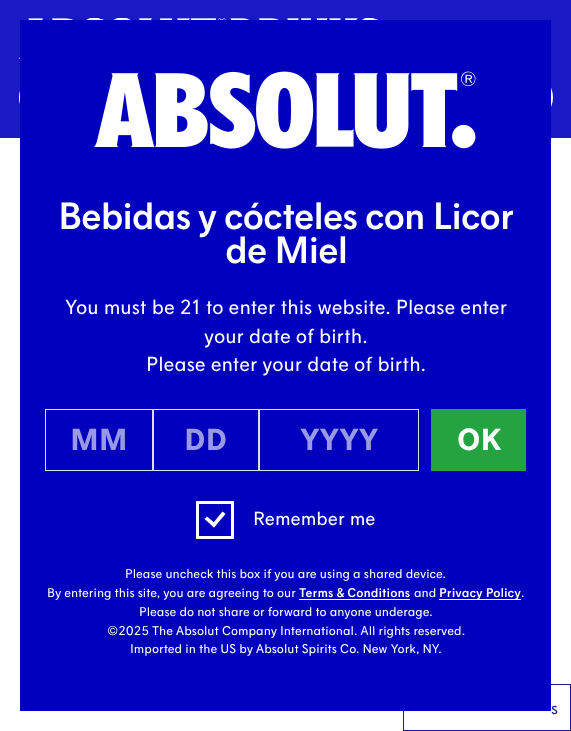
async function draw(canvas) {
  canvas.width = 571;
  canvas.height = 731;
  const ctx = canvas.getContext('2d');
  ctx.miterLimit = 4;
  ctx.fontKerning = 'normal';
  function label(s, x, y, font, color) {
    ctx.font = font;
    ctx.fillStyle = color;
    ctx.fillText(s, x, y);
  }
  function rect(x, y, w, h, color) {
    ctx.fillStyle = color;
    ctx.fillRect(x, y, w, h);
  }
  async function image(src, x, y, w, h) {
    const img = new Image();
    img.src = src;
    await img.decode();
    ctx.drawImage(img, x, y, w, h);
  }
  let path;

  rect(0, 0, 571, 731, '#fff');
  rect(0, 0, 571, 138, '#1a1ac4');
  await image('assets/img1.png', 19, 18, 359, 41);
  ctx.beginPath();
  ctx.roundRect(20.5, 76.5, 531, 42, 21);
  ctx.strokeStyle = '#fff';
  ctx.lineWidth = 3;
  ctx.stroke();
  ctx.strokeStyle = '#1a1a99';
  ctx.lineWidth = 1;
  ctx.strokeRect(403.5, 684.5, 167, 46);
  rect(20, 20, 531, 691, '#0000bd');
  await image('assets/img2.png', 94, 71, 382, 78);
  ctx.letterSpacing = '-1.25px';
  label('Bebidas y cócteles con Licor', 58, 229, '500 37.5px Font', '#fff');
  label('de Miel', 225, 263, '500 37.5px Font', '#fff');
  ctx.letterSpacing = '0px';
  label('You must be 21 to enter this website. Please enter', 65, 314, '20px Font', '#fff');
  label('your date of birth.', 204, 343, '20px Font', '#fff');
  label('Please enter your date of birth.', 146, 371, '20px Font', '#fff');
  ctx.strokeStyle = '#ddd';
  ctx.strokeRect(45.5, 409.5, 107, 61);
  label('MM', 70, 450, 'bold 30px Font', '#9999e5');
  ctx.strokeRect(153.5, 409.5, 105, 61);
  label('DD', 184, 450, 'bold 30px Font', '#9999e5');
  ctx.strokeRect(259.5, 409.5, 159, 61);
  label('YYYY', 300, 450, 'bold 30px Font', '#9999e5');
  rect(431, 409, 95, 62, '#24a340');
  label('OK', 457, 450, 'bold 30px Font', '#fff');
  ctx.strokeStyle = '#fff';
  ctx.lineWidth = 3;
  ctx.strokeRect(197.5, 502.5, 35, 35);
  path = new Path2D('M222.5 511.5L225.5 514L214 527.5L211.5 525Z');
  ctx.fill(path);
  path = new Path2D('M207 516.5L216.5 524.5L214 527.5L204.5 519Z');
  ctx.fill(path);
  label('Remember me', 253, 525, '18.75px Font', '#fff');
  label('Please uncheck this box if you are using a shared device.', 125, 578, '12.5px Font', '#fff');
  label('By entering this site, you are agreeing to our', 47, 597, '12.5px Font', '#fff');
  label('Terms & Conditions', 299, 597, '500 12.5px Font', '#fff');
  rect(299, 599, 111, 1, '#fff');
  label('and', 414, 597, '12.5px Font', '#fff');
  rect(439, 599, 82, 1, '#fff');
  label('Privacy Policy', 439, 597, '500 12.5px Font', '#fff');
  label('.', 521, 597, '12.5px Font', '#fff');
  label('Please do not share or forward to anyone underage.', 139, 616, '12.5px Font', '#fff');
  label('©2025 The Absolut Company International. All rights reserved.', 107, 635, '12.5px Font', '#fff');
  label('Imported in the US by Absolut Spirits Co. New York, NY.', 130, 653, '12.5px Font', '#fff');
  label('s', 551, 714, '17px Font', '#1a1a99');
}

draw(document.querySelector('canvas'));
